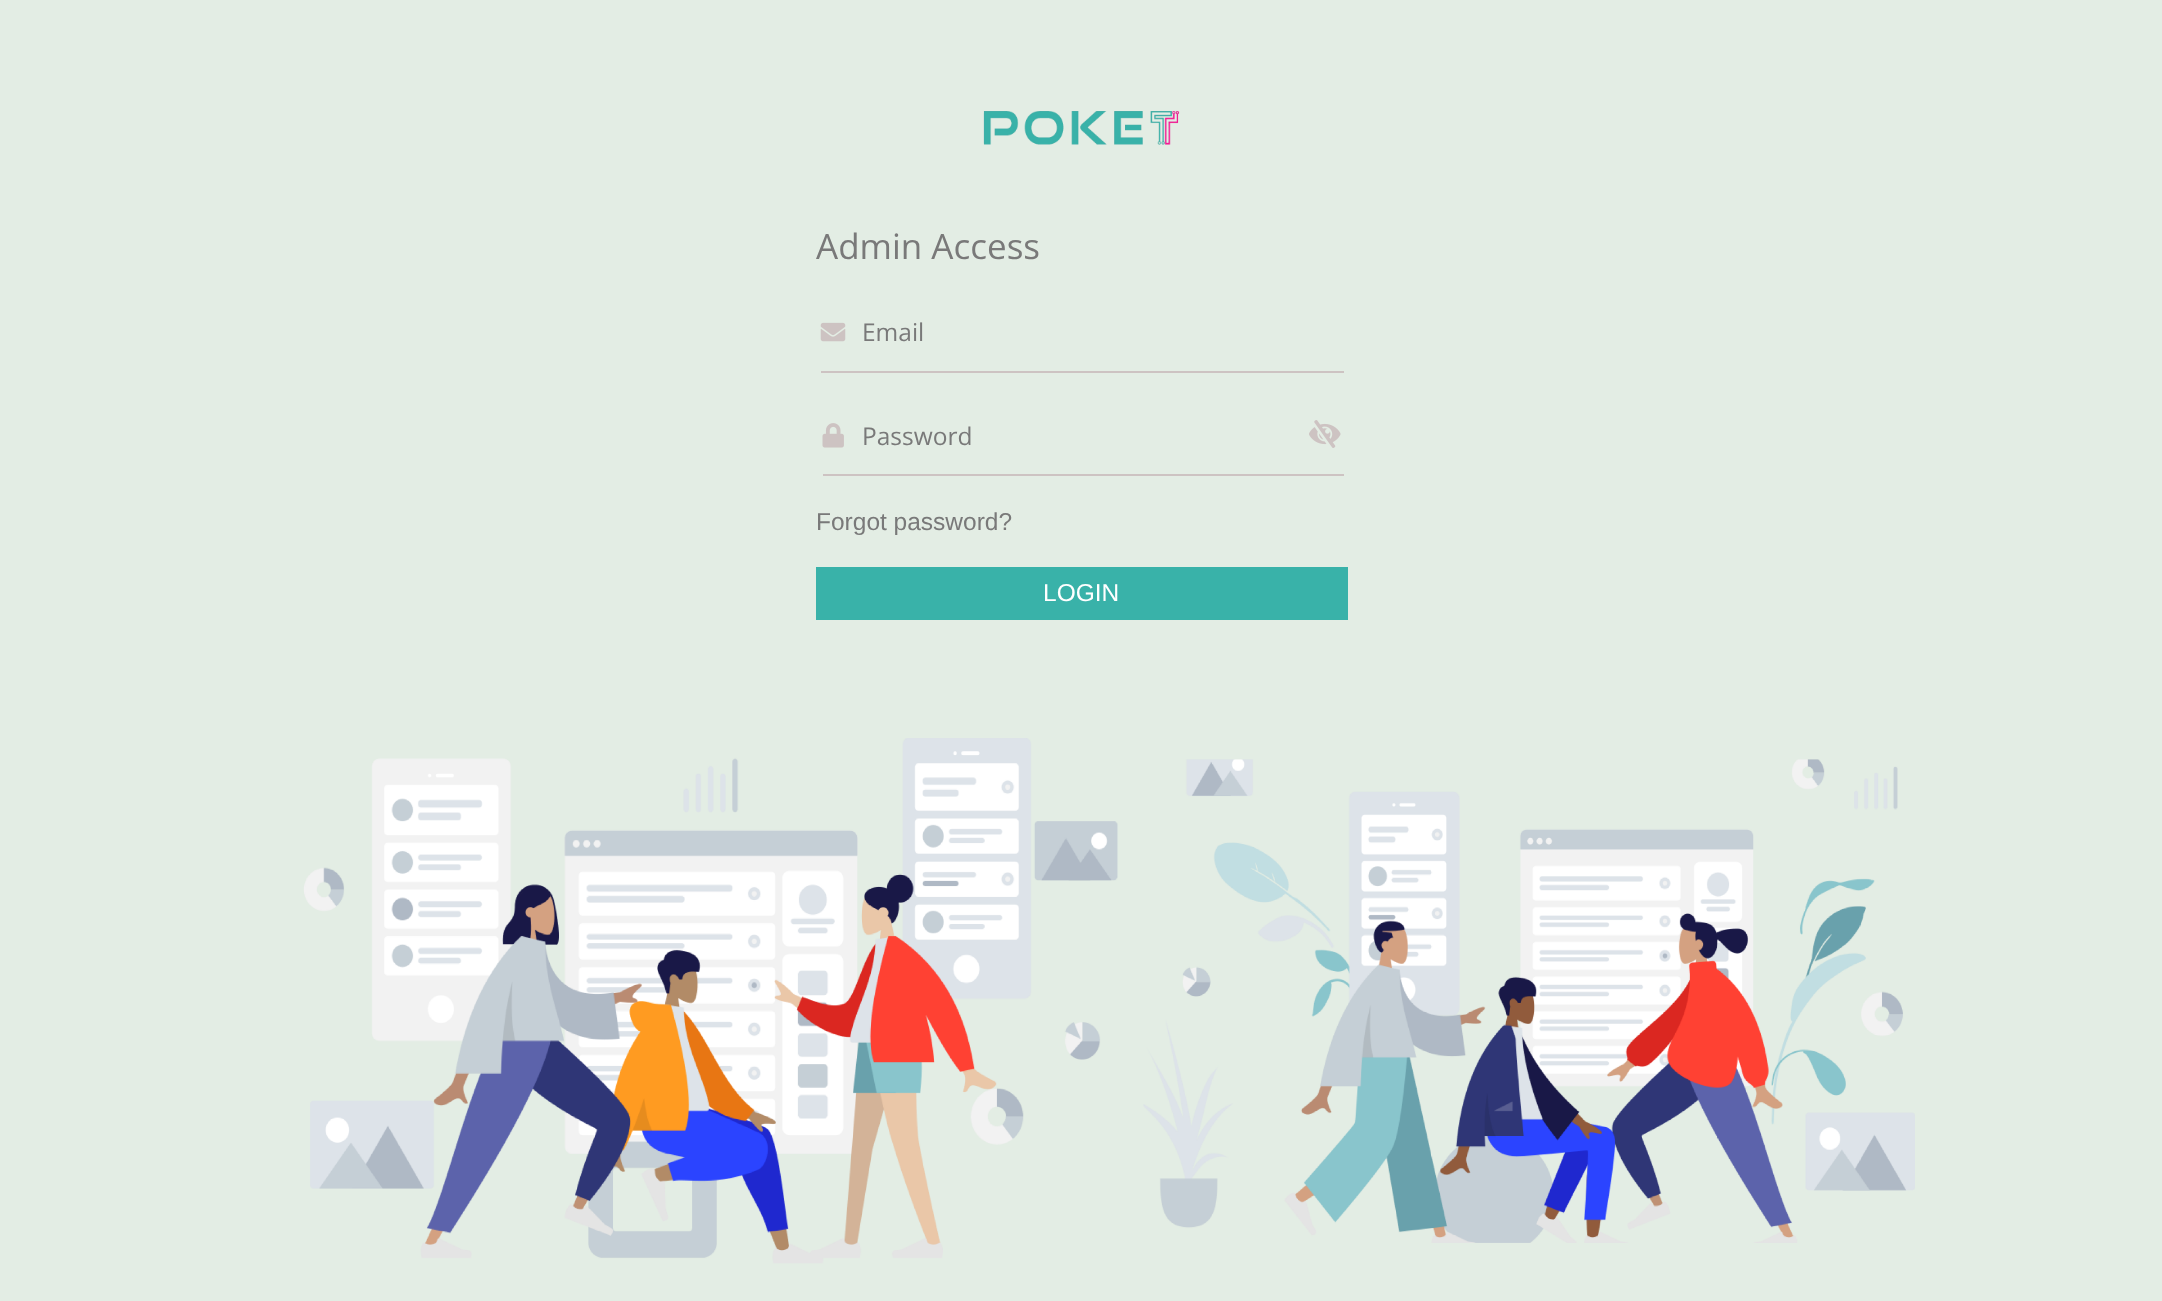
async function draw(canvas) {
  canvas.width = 2162;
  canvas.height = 1301;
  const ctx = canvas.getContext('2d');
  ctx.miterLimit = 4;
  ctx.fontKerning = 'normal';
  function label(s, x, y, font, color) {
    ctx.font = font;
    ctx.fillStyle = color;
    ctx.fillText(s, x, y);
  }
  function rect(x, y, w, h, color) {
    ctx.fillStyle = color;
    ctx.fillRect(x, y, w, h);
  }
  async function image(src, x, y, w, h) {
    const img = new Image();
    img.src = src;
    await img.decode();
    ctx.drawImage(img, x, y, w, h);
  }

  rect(0, 0, 2162, 1301, '#fff');
  await image('assets/img1.png', 0, 0, 2162, 1301);
  await image('assets/img2.png', 983, 111, 197, 34);
  label('Admin Access', 816, 259, '35px Open Sans', '#797979');
  rect(821, 371, 523, 2, '#cdc3c2');
  await image('assets/img3.png', 820, 322, 26, 20);
  label('Email', 862, 341, '24.5px Open Sans', '#797979');
  rect(823, 474, 521, 2, '#cdc3c2');
  await image('assets/img4.png', 822, 423, 22, 25);
  label('Password', 862, 445, '24.5px Open Sans', '#797979');
  await image('assets/img5.png', 1309, 420, 32, 28);
  label('Forgot password?', 816, 530, '24.5px Liberation Sans', '#797979');
  rect(816, 567, 532, 53, '#39b2a9');
  label('LOGIN', 1043, 601, '24.5px Liberation Sans', '#fff');
}

draw(document.querySelector('canvas'));
